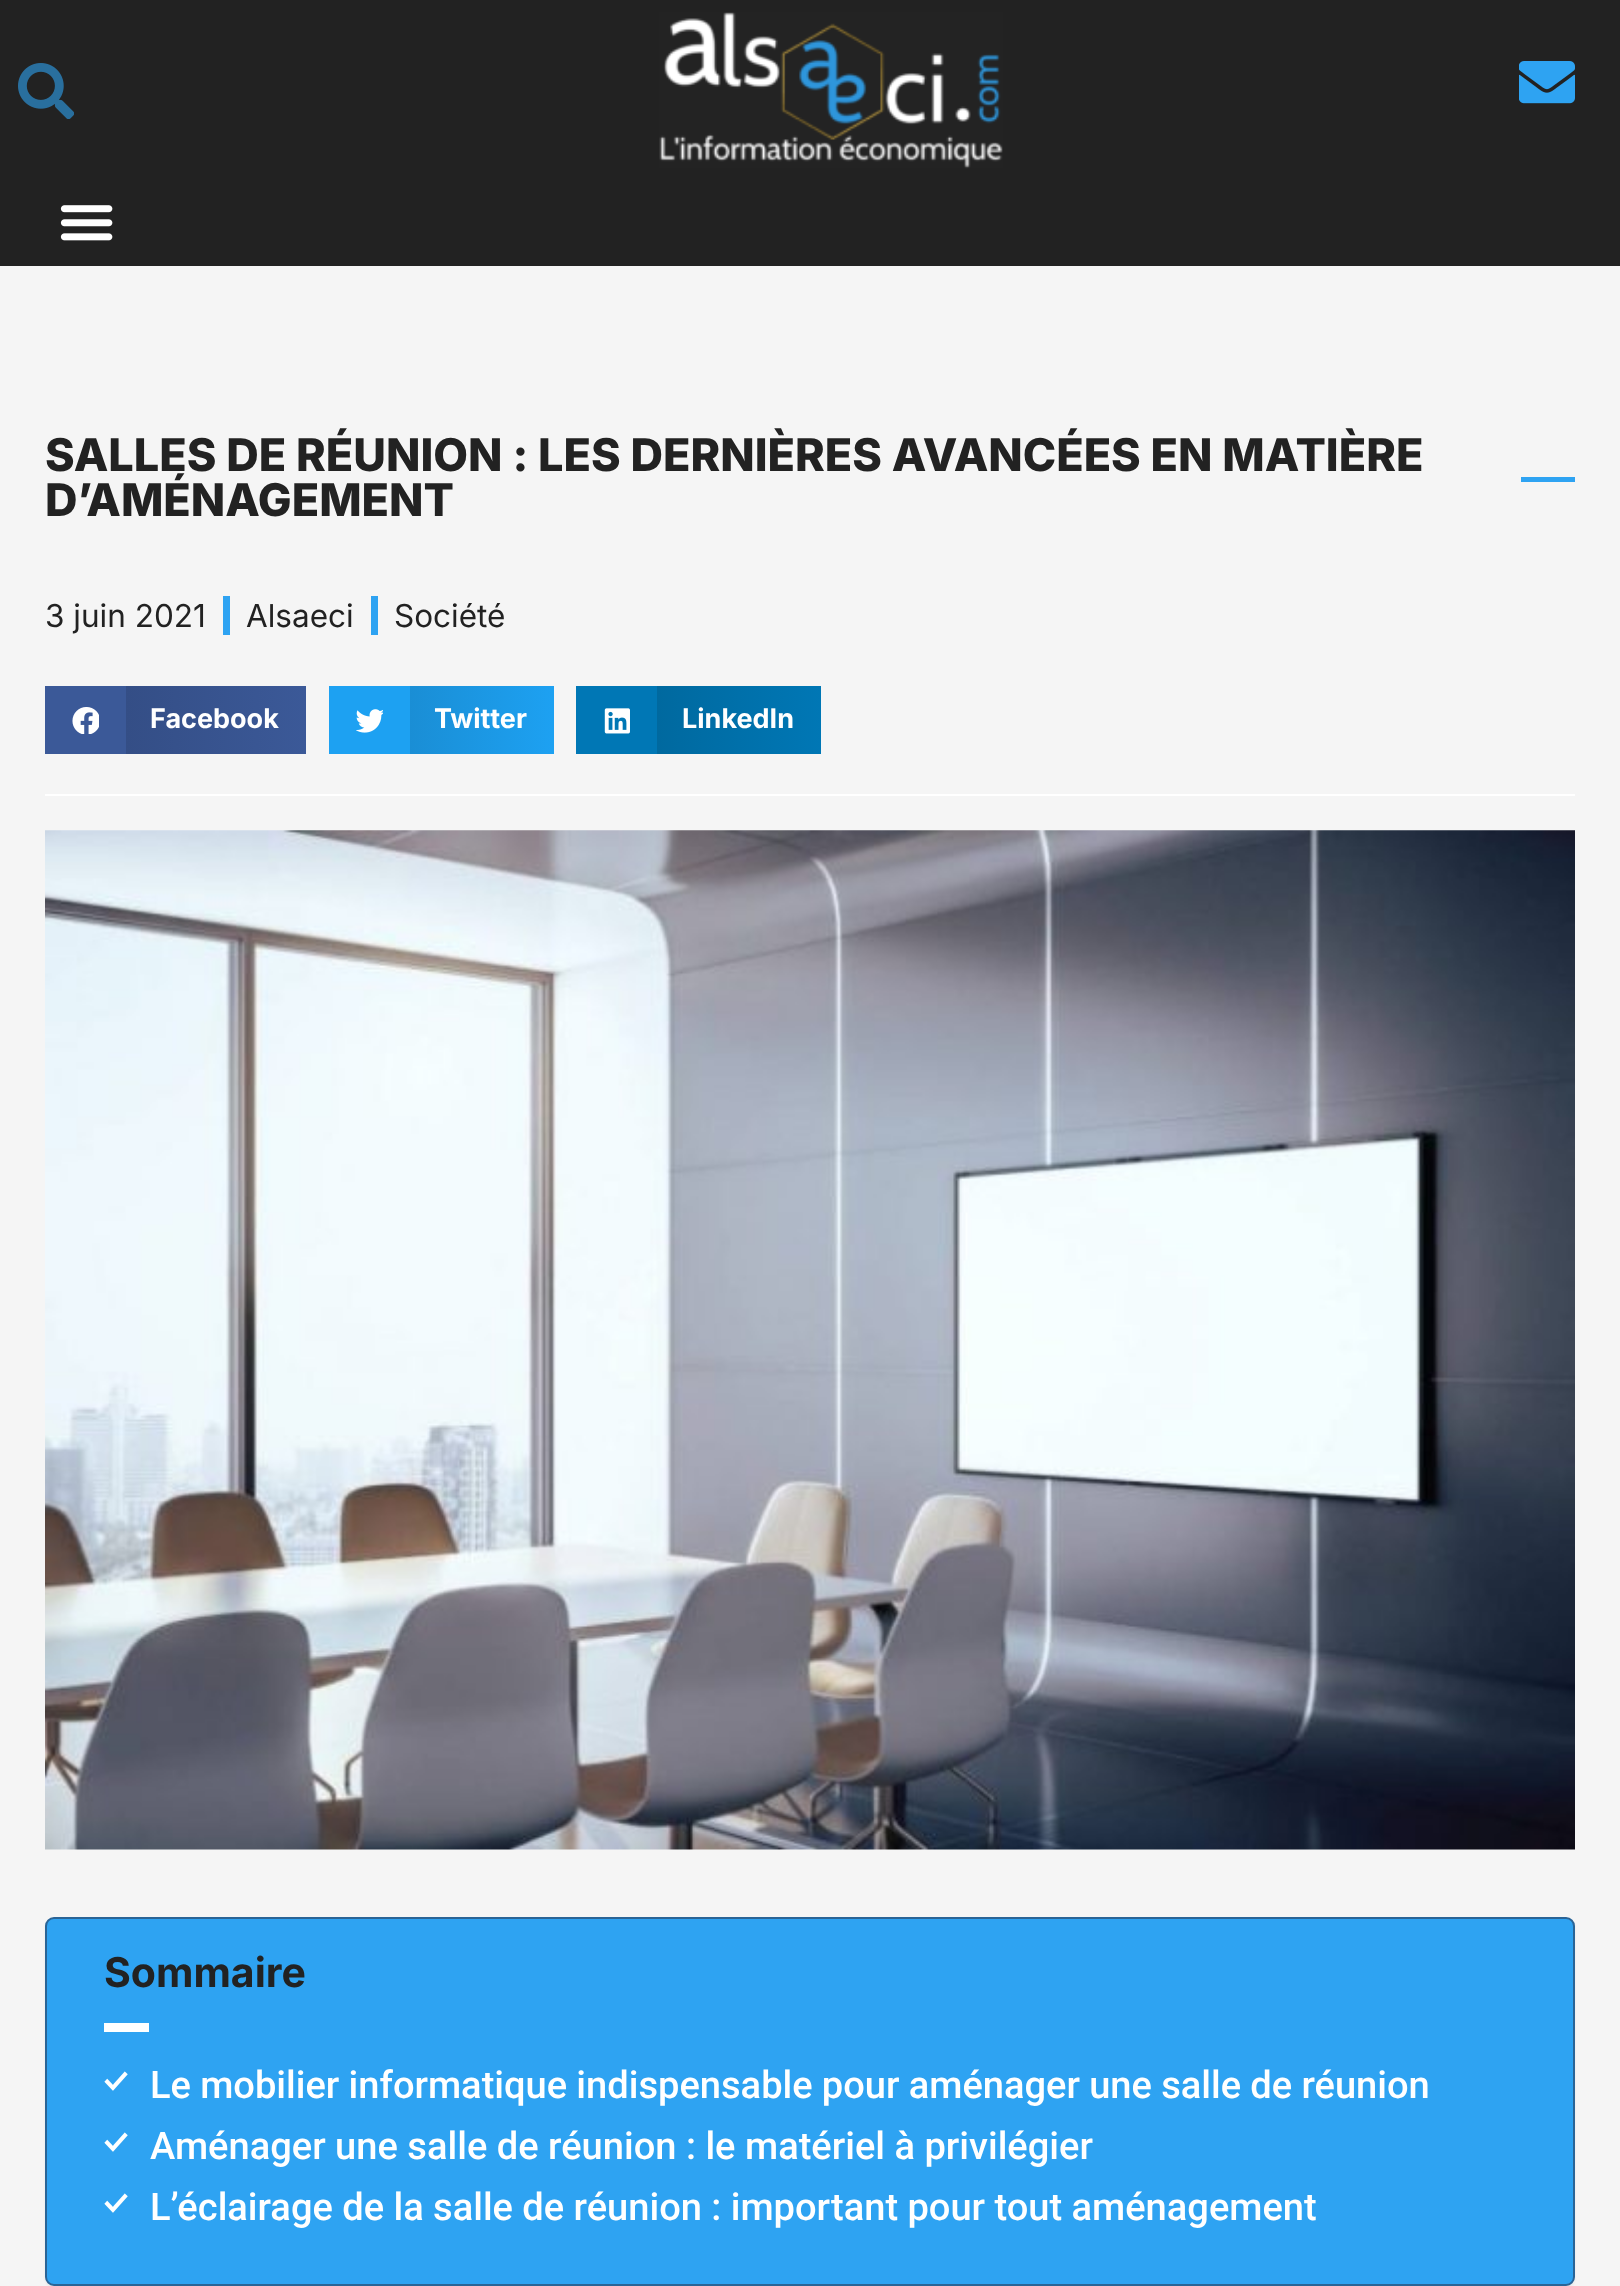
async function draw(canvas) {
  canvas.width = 1620;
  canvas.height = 2286;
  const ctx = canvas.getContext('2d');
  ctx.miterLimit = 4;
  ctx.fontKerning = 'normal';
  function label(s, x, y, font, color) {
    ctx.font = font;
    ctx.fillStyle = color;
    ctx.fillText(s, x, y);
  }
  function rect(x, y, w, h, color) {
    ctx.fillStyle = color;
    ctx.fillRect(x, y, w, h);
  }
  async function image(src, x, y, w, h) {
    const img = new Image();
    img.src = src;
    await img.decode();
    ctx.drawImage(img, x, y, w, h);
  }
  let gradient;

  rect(0, 0, 1620, 2286, '#f5f5f5');
  rect(0, 0, 1620, 266, '#222');
  await image('assets/img1.png', 18, 63, 56, 56);
  await image('assets/img2.png', 659, 12, 344, 157);
  await image('assets/img3.png', 1519, 61, 56, 43);
  await image('assets/img4.png', 60, 205, 53, 36);
  label('SALLES DE RÉUNION : LES DERNIÈRES AVANCÉES EN MATIÈRE', 45, 471, '800 45px Inter', '#222');
  label('D’AMÉNAGEMENT', 45, 516, '800 45px Inter', '#222');
  rect(1521, 477, 54, 5, '#2ea3f2');
  label('3 juin 2021', 45, 627, '31.5px Inter', '#222');
  rect(223, 596, 7, 39, '#2ea3f2');
  label('Alsaeci', 246, 627, '31.5px Inter', '#222');
  rect(371, 596, 7, 39, '#2ea3f2');
  label('Société', 394, 627, '31.5px Inter', '#222');
  rect(45, 686, 81, 68, '#3b5998');
  await image('assets/img5.png', 72, 707, 27, 27);
  gradient = ctx.createLinearGradient(126, 720, 306, 720);
  gradient.addColorStop(0, '#344e86');
  gradient.addColorStop(1, '#3b5998');
  ctx.fillStyle = gradient;
  ctx.fillRect(126, 686, 180, 68);
  label('Facebook', 150, 728, 'bold 27px Inter', '#fff');
  rect(329, 686, 81, 68, '#1da1f2');
  await image('assets/img6.png', 356, 709, 27, 24);
  gradient = ctx.createLinearGradient(410, 720, 554, 720);
  gradient.addColorStop(0, '#1a8ed5');
  gradient.addColorStop(1, '#1da1f2');
  ctx.fillStyle = gradient;
  ctx.fillRect(410, 686, 144, 68);
  label('Twitter', 434, 728, 'bold 27px Inter', '#fff');
  rect(576, 686, 81, 68, '#0077b5');
  await image('assets/img7.png', 604, 708, 26, 26);
  gradient = ctx.createLinearGradient(657, 720, 821, 720);
  gradient.addColorStop(0, '#00699f');
  gradient.addColorStop(1, '#0077b5');
  ctx.fillStyle = gradient;
  ctx.fillRect(657, 686, 164, 68);
  label('LinkedIn', 682, 728, 'bold 27px Inter', '#fff');
  rect(45, 794, 1530, 2, '#fff');
  await image('assets/img8.png', 45, 830, 1530, 1020);
  ctx.fillStyle = '#0000000d';
  ctx.filter = 'blur(1px)';
  ctx.beginPath();
  ctx.roundRect(45, 1919, 1530, 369, 9);
  ctx.fill();
  ctx.filter = 'none';
  ctx.fillStyle = '#2ea3f2';
  ctx.beginPath();
  ctx.roundRect(46, 1918, 1528, 367, 8);
  ctx.fill();
  ctx.strokeStyle = '#2a6496';
  ctx.lineWidth = 2;
  ctx.stroke();
  label('Sommaire', 104, 1987, 'bold 41px Inter', '#222');
  rect(104, 2023, 45, 9, '#fff');
  label('✓', 104, 2093, '800 34px Ubuntu', '#fff');
  ctx.wordSpacing = '-0.25px';
  label('Le mobilier informatique indispensable pour aménager une salle de réunion', 150, 2098, '500 38.1px Roboto', '#fff');
  ctx.wordSpacing = '0px';
  label('✓', 104, 2154, '800 34px Ubuntu', '#fff');
  label('Aménager une salle de réunion : le matériel à privilégier', 150, 2159, '500 38.1px Roboto', '#fff');
  label('✓', 104, 2215, '800 34px Ubuntu', '#fff');
  ctx.wordSpacing = '-0.1px';
  label('L’éclairage de la salle de réunion : important pour tout aménagement', 150, 2220, '500 38.1px Roboto', '#fff');
}

draw(document.querySelector('canvas'));
